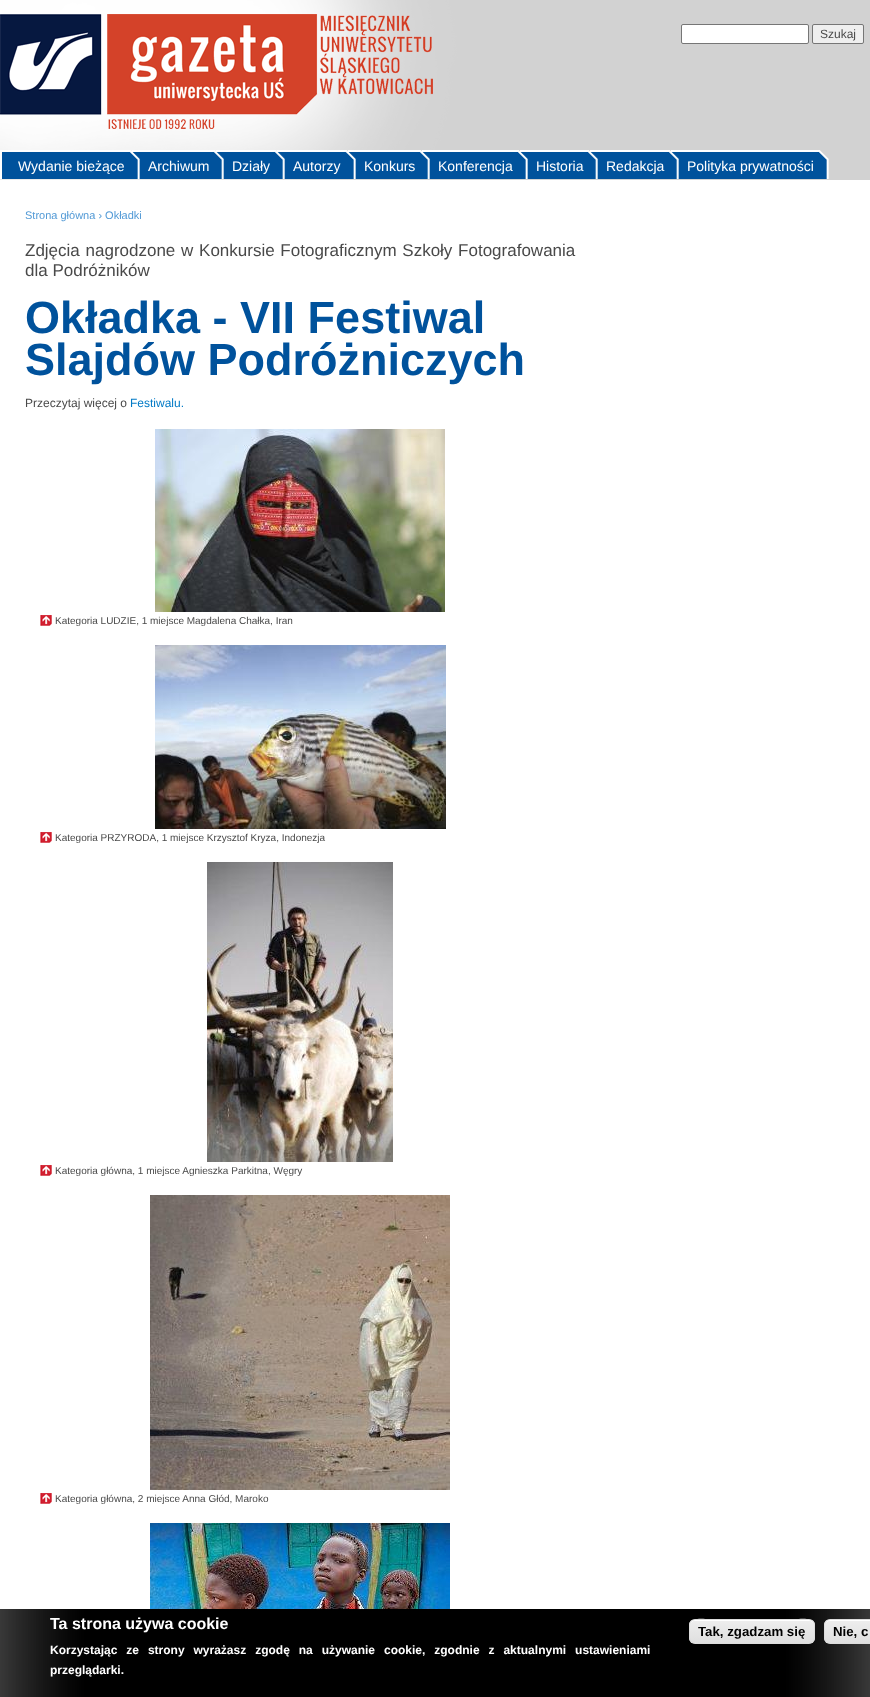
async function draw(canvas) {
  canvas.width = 870;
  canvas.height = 1697;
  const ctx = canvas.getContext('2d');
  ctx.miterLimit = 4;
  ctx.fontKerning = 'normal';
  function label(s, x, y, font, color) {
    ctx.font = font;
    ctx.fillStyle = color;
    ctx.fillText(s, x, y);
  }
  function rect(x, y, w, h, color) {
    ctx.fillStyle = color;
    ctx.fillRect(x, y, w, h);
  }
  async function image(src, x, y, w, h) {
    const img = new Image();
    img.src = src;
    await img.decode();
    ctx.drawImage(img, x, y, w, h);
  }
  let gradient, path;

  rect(0, 0, 870, 1697, '#d2d2d2');
  await image('assets/img1.png', 0, 0, 496, 180);
  await image('assets/img2.png', 0, 14, 433, 115);
  ctx.fillStyle = '#fff';
  ctx.beginPath();
  ctx.roundRect(681.5, 24.5, 127, 19, 1.5);
  ctx.fill();
  ctx.strokeStyle = '#767676';
  ctx.stroke();
  ctx.fillStyle = '#efefef';
  ctx.beginPath();
  ctx.roundRect(812.5, 24.5, 51, 19, 1.5);
  ctx.fill();
  ctx.stroke();
  label('Szukaj', 820, 38, '12px Liberation Sans', '#494949');
  await image('assets/img11.png', 671, 150, 158, 29);
  await image('assets/img10.png', 590, 150, 89, 29);
  await image('assets/img9.png', 520, 150, 78, 29);
  await image('assets/img8.png', 422, 150, 106, 29);
  await image('assets/img7.png', 348, 150, 82, 29);
  await image('assets/img6.png', 277, 150, 79, 29);
  await image('assets/img5.png', 216, 150, 69, 29);
  await image('assets/img4.png', 132, 150, 92, 29);
  await image('assets/img3.png', 2, 150, 138, 29);
  rect(0, 150, 2, 29, '#fff');
  label('Wydanie bieżące', 18, 171, '14px Liberation Sans', '#fff');
  label('Archiwum', 148, 171, '14px Liberation Sans', '#fff');
  label('Działy', 232, 171, '14px Liberation Sans', '#fff');
  label('Autorzy', 293, 171, '14px Liberation Sans', '#fff');
  label('Konkurs', 364, 171, '14px Liberation Sans', '#fff');
  label('Konferencja', 438, 171, '14px Liberation Sans', '#fff');
  label('Historia', 536, 171, '14px Liberation Sans', '#fff');
  label('Redakcja', 606, 171, '14px Liberation Sans', '#fff');
  label('Polityka prywatności', 687, 171, '14px Liberation Sans', '#fff');
  rect(0, 180, 870, 1517, '#fff');
  label('Strona główna › Okładki', 25, 219, '11px Liberation Sans', '#529ad6');
  ctx.wordSpacing = '1px';
  label('Zdjęcia nagrodzone w Konkursie Fotograficznym Szkoły Fotografowania', 25, 256, '17px Liberation Sans', '#494949');
  ctx.wordSpacing = '0px';
  label('dla Podróżników', 25, 276, '17px Liberation Sans', '#494949');
  label('Okładka - VII Festiwal', 25, 333, 'bold 45px Liberation Sans', '#00529c');
  label('Slajdów Podróżniczych', 25, 375, 'bold 45px Liberation Sans', '#00529c');
  label('Przeczytaj więcej o', 25, 407, '12px Liberation Sans', '#494949');
  label('Festiwalu.', 130, 407, '12px Liberation Sans', '#027ac6');
  await image('assets/img12.png', 155, 429, 290, 183);
  await image('assets/img13.png', 40, 615, 12, 11);
  label('Kategoria LUDZIE, 1 miejsce Magdalena Chałka, Iran', 55, 624, '10px Liberation Sans', '#494949');
  await image('assets/img14.png', 155, 645, 291, 184);
  await image('assets/img13.png', 40, 832, 12, 11);
  label('Kategoria PRZYRODA, 1 miejsce Krzysztof Kryza, Indonezja', 55, 841, '10px Liberation Sans', '#494949');
  await image('assets/img15.png', 207, 862, 186, 300);
  await image('assets/img13.png', 40, 1165, 12, 11);
  label('Kategoria główna, 1 miejsce Agnieszka Parkitna, Węgry', 55, 1174, '10px Liberation Sans', '#494949');
  await image('assets/img16.png', 150, 1195, 300, 295);
  await image('assets/img13.png', 40, 1493, 12, 11);
  label('Kategoria główna, 2 miejsce Anna Głód, Maroko', 55, 1502, '10px Liberation Sans', '#494949');
  await image('assets/img17.png', 150, 1523, 300, 86);
  await image('assets/img18.png', 0, 1609, 870, 88);
  label('Ta strona używa cookie', 50, 1629, 'bold 16px Liberation Sans', '#fff');
  ctx.wordSpacing = '5.6px';
  label('Korzystając ze strony wyrażasz zgodę na używanie cookie, zgodnie z aktualnymi ustawieniami', 50, 1654, 'bold 12px Liberation Sans', '#fff');
  ctx.wordSpacing = '0px';
  label('przeglądarki.', 50, 1674, 'bold 12px Liberation Sans', '#fff');
  ctx.save();
  ctx.beginPath();
  ctx.roundRect(689, 1619, 126, 25, 6);
  ctx.clip();
  gradient = ctx.createLinearGradient(690, 1620, 690, 1643);
  gradient.addColorStop(0.05, '#ededed');
  gradient.addColorStop(1, '#dfdfdf');
  ctx.fillStyle = gradient;
  ctx.fillRect(689, 1620, 126, 23);
  ctx.restore();
  path = new Path2D('M695 1621H809C812 1621 814 1623 814 1626C814 1615 794 1620 790 1620H714C710 1620 690 1615 690 1626C690 1623 692 1621 695 1621Z');
  ctx.fill(path);
  ctx.beginPath();
  ctx.roundRect(689.5, 1619.5, 125, 24, 5.5);
  ctx.strokeStyle = '#dcdcdc';
  ctx.stroke();
  label('Tak, zgadzam się', 698, 1636, 'bold 13.25px Liberation Sans', '#000');
  ctx.save();
  ctx.beginPath();
  ctx.roundRect(824, 1619, 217, 25, 6);
  ctx.clip();
  gradient = ctx.createLinearGradient(825, 1620, 825, 1643);
  gradient.addColorStop(0.05, '#ededed');
  gradient.addColorStop(1, '#dfdfdf');
  ctx.fillStyle = gradient;
  ctx.fillRect(824, 1620, 46, 23);
  ctx.restore();
  ctx.fillStyle = '#fff';
  path = new Path2D('M830 1621H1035C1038 1621 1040 1623 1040 1626C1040 1623 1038 1620 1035 1620H829C826 1621 825 1623 825 1626C825 1623 827 1621 830 1621Z');
  ctx.fill(path);
  ctx.beginPath();
  ctx.roundRect(824.5, 1619.5, 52, 24, 5.5);
  ctx.stroke();
  label('Nie, c', 833, 1636, 'bold 13.25px Liberation Sans', '#000');
}

draw(document.querySelector('canvas'));
